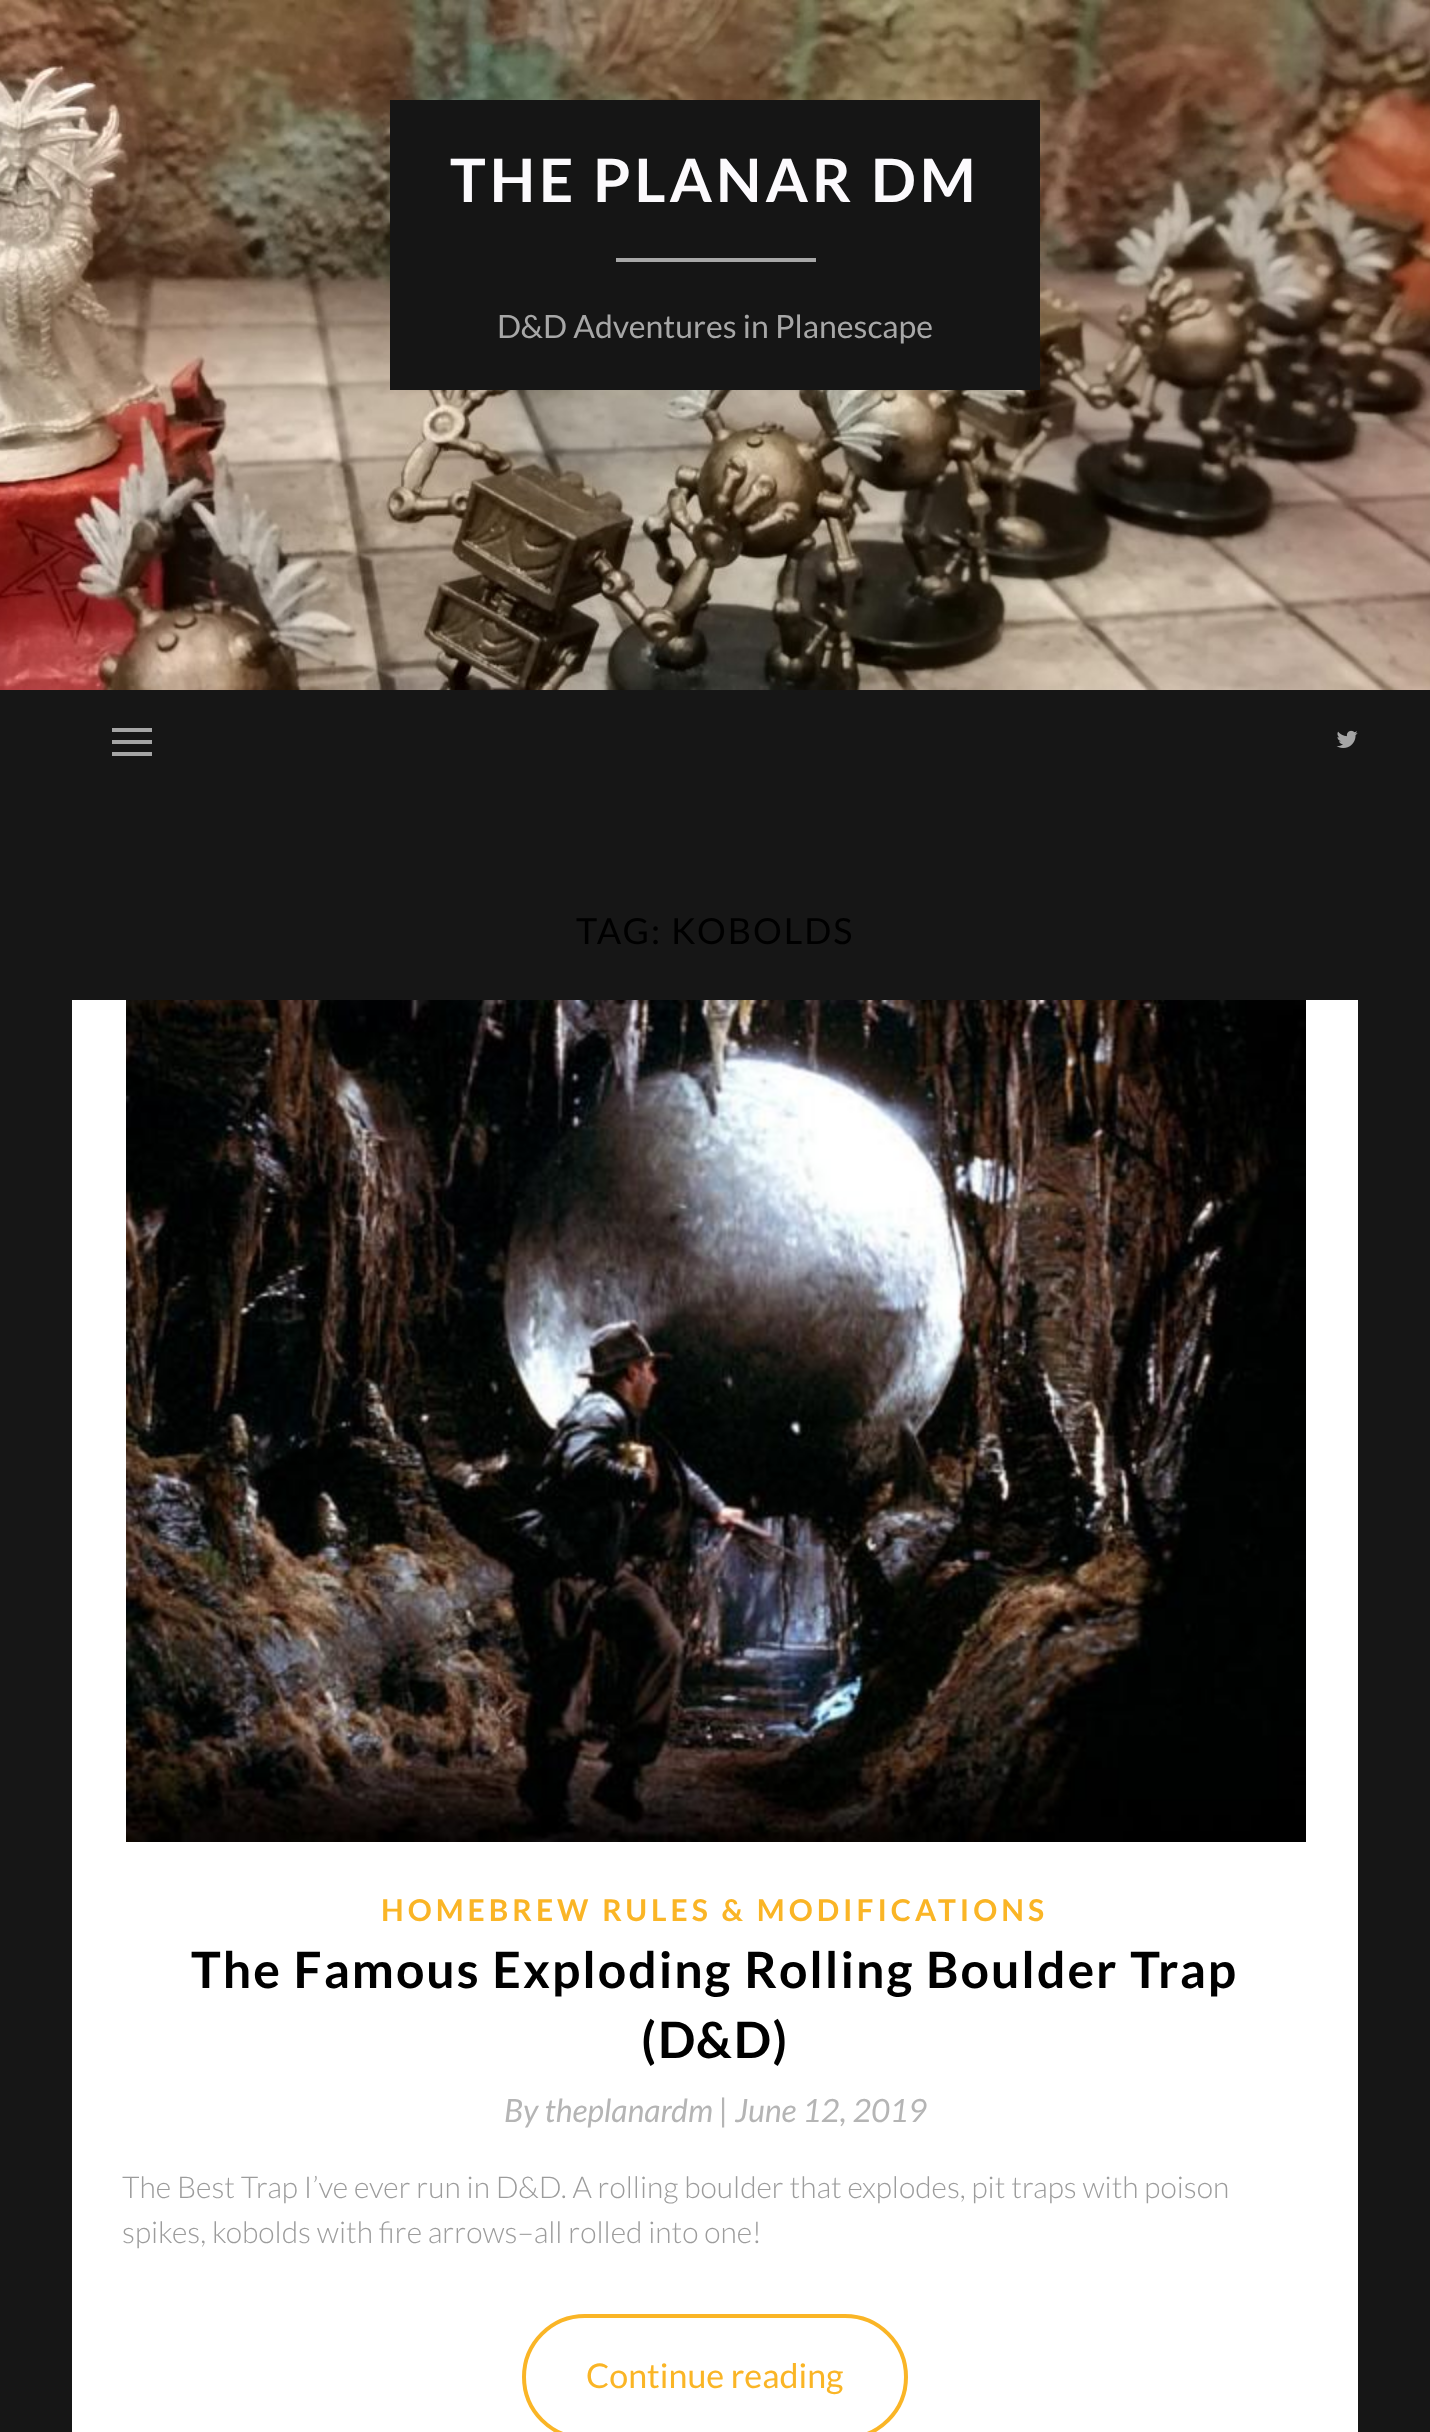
async function draw(canvas) {
  canvas.width = 1430;
  canvas.height = 2432;
  const ctx = canvas.getContext('2d');
  ctx.miterLimit = 4;
  ctx.fontKerning = 'normal';
  function label(s, x, y, font, color) {
    ctx.font = font;
    ctx.fillStyle = color;
    ctx.fillText(s, x, y);
  }
  function rect(x, y, w, h, color) {
    ctx.fillStyle = color;
    ctx.fillRect(x, y, w, h);
  }
  async function image(src, x, y, w, h) {
    const img = new Image();
    img.src = src;
    await img.decode();
    ctx.drawImage(img, x, y, w, h);
  }

  rect(0, 0, 1430, 2432, '#161616');
  await image('assets/img1.png', 0, 0, 1430, 690);
  rect(390, 100, 650, 290, '#151515');
  ctx.letterSpacing = '4px';
  label('THE PLANAR DM', 450, 202, 'bold 60px Lato', '#fcfafd');
  rect(616, 258, 200, 4, '#a7a7a7');
  ctx.letterSpacing = '0px';
  label('D&D Adventures in Planescape', 497, 338, '32px Lato', '#a7a7a7');
  rect(112, 728, 40, 4, '#a5a5a5');
  rect(112, 740, 40, 4, '#a5a5a5');
  rect(112, 752, 40, 4, '#a5a5a5');
  await image('assets/img2.png', 1336, 730, 22, 18);
  ctx.letterSpacing = '2px';
  label('TAG: KOBOLDS', 576, 944, '36px Lato', '#000');
  rect(72, 1000, 1286, 1432, '#fff');
  await image('assets/img3.png', 126, 1000, 1180, 842);
  ctx.letterSpacing = '4px';
  label('HOMEBREW RULES & MODIFICATIONS', 381, 1921, 'bold 30px Lato', '#fab526');
  ctx.letterSpacing = '2px';
  label('The Famous Exploding Rolling Boulder Trap', 191, 1988, 'bold 50px Lato', '#000');
  label('(D&D)', 641, 2058, 'bold 50px Lato', '#000');
  ctx.letterSpacing = '0px';
  label('By theplanardm | June 12, 2019', 504, 2122, 'italic 32px Lato', '#b5b5b5');
  label('The Best Trap I’ve ever run in D&D. A rolling boulder that explodes, pit traps with poison', 122, 2198, '300 30px Lato', '#9c9c9c');
  label('spikes, kobolds with fire arrows–all rolled into one!', 122, 2243, '300 30px Lato', '#9c9c9c');
  ctx.beginPath();
  ctx.roundRect(524, 2316, 382, 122, 61);
  ctx.strokeStyle = '#fab526';
  ctx.lineWidth = 4;
  ctx.stroke();
  label('Continue reading', 586, 2388, '34px Lato', '#fab526');
}

draw(document.querySelector('canvas'));
